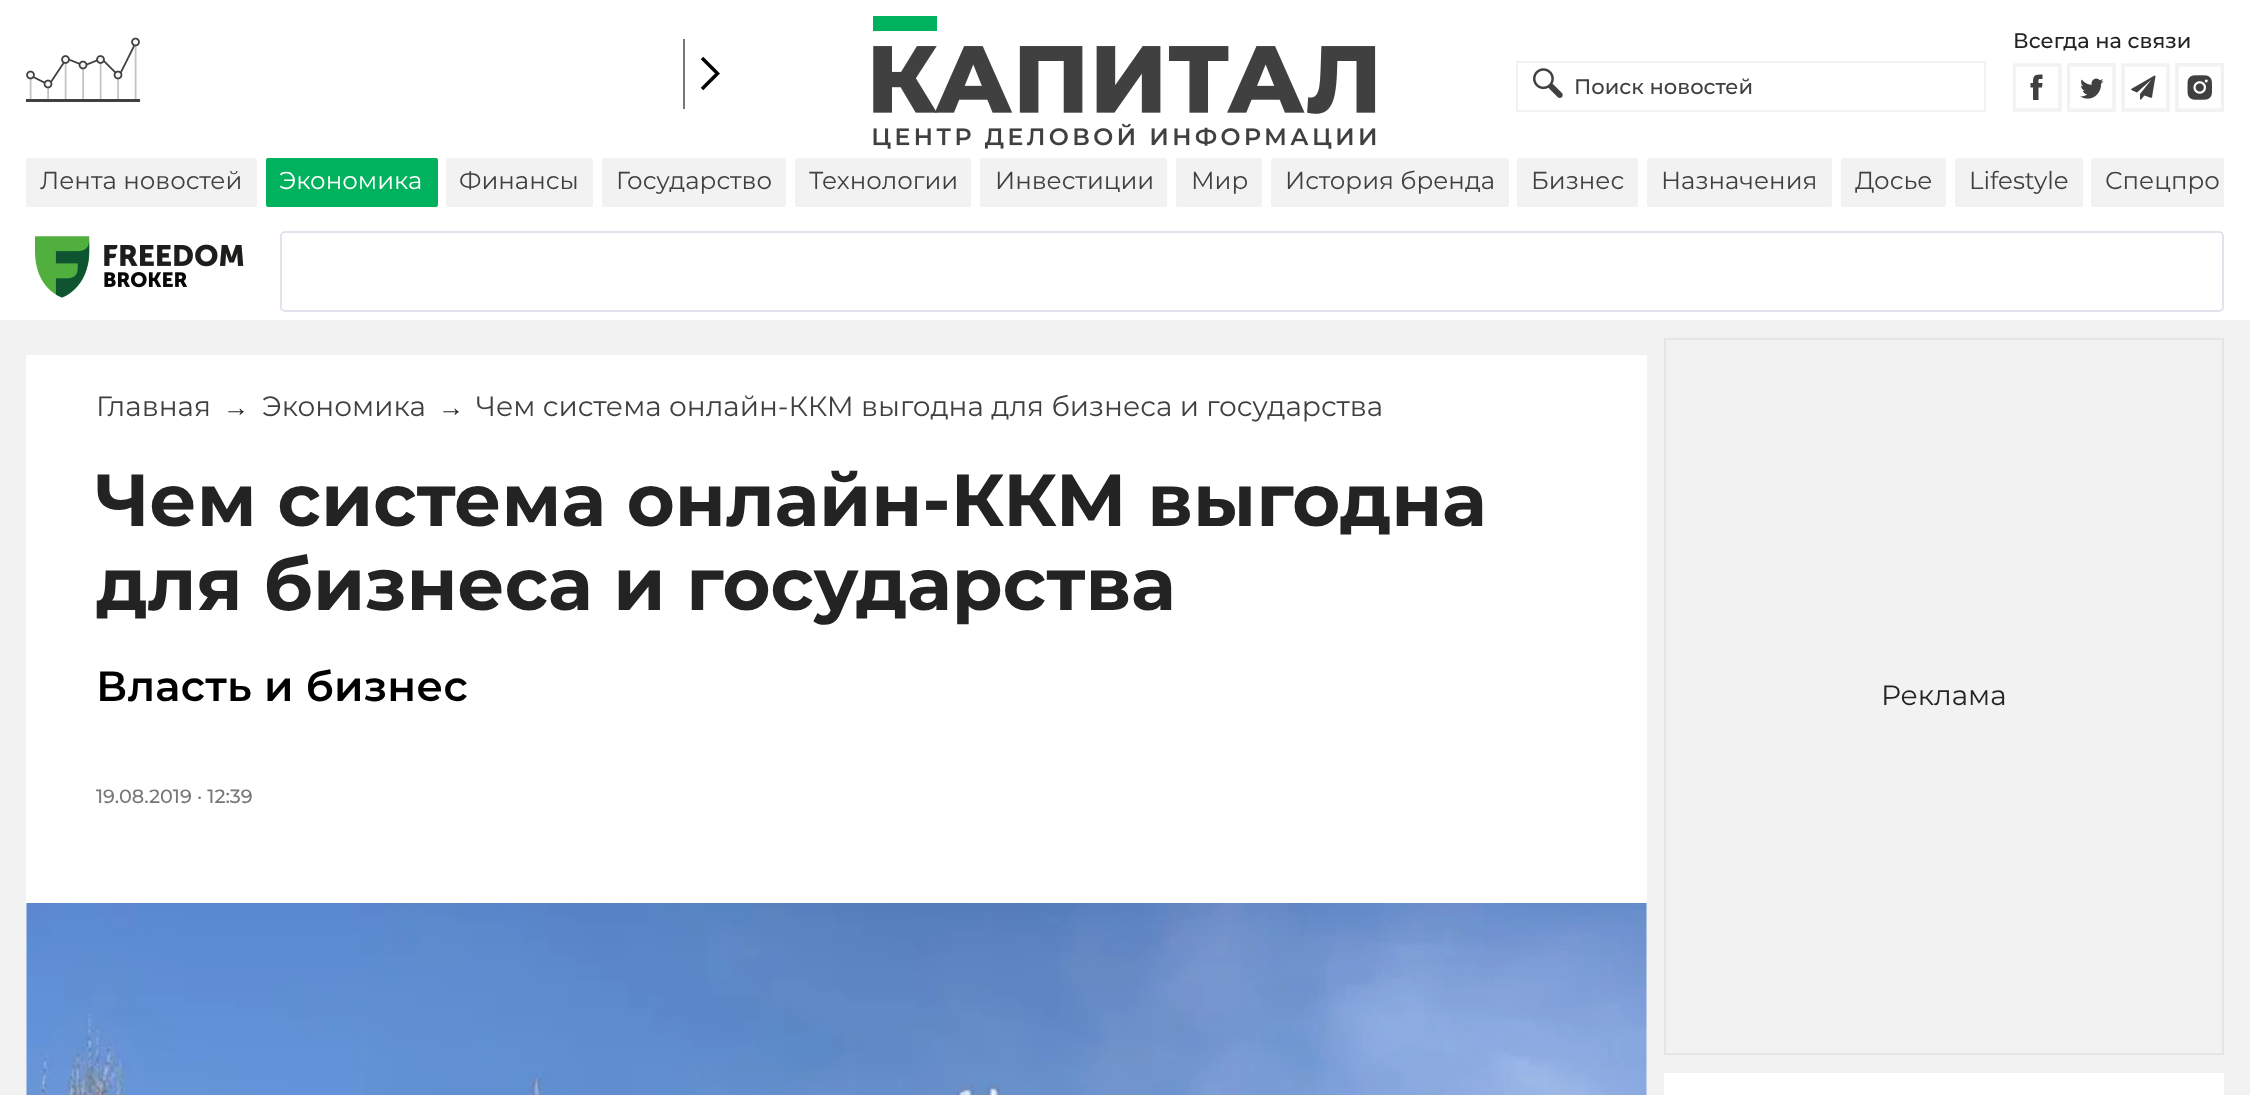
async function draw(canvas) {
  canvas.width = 2250;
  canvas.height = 1095;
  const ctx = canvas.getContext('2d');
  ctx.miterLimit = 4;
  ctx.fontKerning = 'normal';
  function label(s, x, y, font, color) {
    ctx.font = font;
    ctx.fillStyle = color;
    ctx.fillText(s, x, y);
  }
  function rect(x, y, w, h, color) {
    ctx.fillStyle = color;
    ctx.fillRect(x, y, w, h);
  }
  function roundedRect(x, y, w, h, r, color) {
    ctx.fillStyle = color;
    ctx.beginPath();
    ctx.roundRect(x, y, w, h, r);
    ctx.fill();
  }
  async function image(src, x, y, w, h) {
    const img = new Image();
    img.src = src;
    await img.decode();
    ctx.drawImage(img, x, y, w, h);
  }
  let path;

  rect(0, 0, 2250, 1095, '#f2f2f2');
  rect(0, 0, 2250, 320, '#fff');
  await image('assets/img1.png', 35, 236, 209, 62);
  ctx.beginPath();
  ctx.roundRect(281, 232, 1942, 79, 4);
  ctx.strokeStyle = '#e0e3eb';
  ctx.lineWidth = 2;
  ctx.stroke();
  await image('assets/img2.png', 26, 37, 114, 65);
  rect(683, 39, 2, 70, '#777');
  path = new Path2D('M702 58L717.5 73.5L702 89');
  ctx.strokeStyle = '#000';
  ctx.lineWidth = 3.5;
  ctx.stroke(path);
  await image('assets/img3.png', 873, 16, 503, 133);
  label('Всегда на связи', 2013, 48, '500 21px Montserrat', '#232323');
  ctx.save();
  ctx.beginPath();
  ctx.rect(2013, 63, 49, 49);
  ctx.clip();
  path = new Path2D('M2014 110V65H2060V110Z');
  ctx.strokeStyle = '#f2f2f2';
  ctx.stroke(path);
  ctx.restore();
  ctx.fillStyle = '#404040';
  path = new Path2D('M2038.5 100H2033V87.5H2030.5V83H2033C2033 74.5 2035 74.5 2042.5 74.5V79C2038 79 2038.5 78.5 2038.5 83H2042.5L2042 87.5H2038.5Z');
  ctx.fill(path, 'evenodd');
  await image('assets/img4.png', 2067, 63, 49, 49);
  path = new Path2D('M2123 110V65H2168V110Z');
  ctx.strokeStyle = '#f2f2f2';
  ctx.stroke(path);
  path = new Path2D('M2155.5 76.5L2152.5 94C2152 97.5 2152.5 98.5 2150 97.5L2144.5 95.5C2139.5 101.5 2140 101.5 2140 94L2151.5 79.5L2137 92.5C2130.5 89.5 2128.5 90 2135.5 86.5L2154.5 75.5C2155 75.5 2155.5 75.5 2155.5 76.5Z');
  ctx.fill(path, 'evenodd');
  await image('assets/img5.png', 2175, 63, 49, 49);
  ctx.lineWidth = 2;
  ctx.strokeRect(1517, 62, 468, 49);
  await image('assets/img6.png', 1533, 68, 30, 30);
  label('Поиск новостей', 1574, 94, '500 21px Montserrat', '#404040');
  roundedRect(26, 158, 231, 49, 2, '#f2f2f2');
  label('Лента новостей', 40, 189, '24.5px Montserrat', '#404040');
  roundedRect(266, 158, 172, 49, 2, '#00b25d');
  label('Экономика', 279, 189, '24.5px Montserrat', '#fff');
  roundedRect(446, 158, 147, 49, 2, '#f2f2f2');
  label('Финансы', 459, 189, '24.5px Montserrat', '#404040');
  roundedRect(602, 158, 184, 49, 2, '#f2f2f2');
  label('Государство', 616, 189, '24.5px Montserrat', '#404040');
  roundedRect(795, 158, 176, 49, 2, '#f2f2f2');
  label('Технологии', 809, 189, '24.5px Montserrat', '#404040');
  roundedRect(980, 158, 187, 49, 2, '#f2f2f2');
  label('Инвестиции', 995, 189, '24.5px Montserrat', '#404040');
  roundedRect(1176, 158, 86, 49, 2, '#f2f2f2');
  label('Мир', 1191, 189, '24.5px Montserrat', '#404040');
  roundedRect(1271, 158, 238, 49, 2, '#f2f2f2');
  label('История бренда', 1285, 189, '24.5px Montserrat', '#404040');
  roundedRect(1517, 158, 121, 49, 2, '#f2f2f2');
  label('Бизнес', 1531, 189, '24.5px Montserrat', '#404040');
  roundedRect(1647, 158, 185, 49, 2, '#f2f2f2');
  label('Назначения', 1661, 189, '24.5px Montserrat', '#404040');
  roundedRect(1841, 158, 105, 49, 2, '#f2f2f2');
  label('Досье', 1855, 189, '24.5px Montserrat', '#404040');
  roundedRect(1955, 158, 128, 49, 2, '#f2f2f2');
  label('Lifestyle', 1969, 189, '24.5px Montserrat', '#404040');
  ctx.fillStyle = '#f2f2f2';
  ctx.beginPath();
  ctx.roundRect(2091, 158, 133, 49, [2, 0, 0, 2]);
  ctx.fill();
  label('Спецпро', 2105, 189, '24.5px Montserrat', '#404040');
  rect(26, 355, 1621, 740, '#fff');
  label('Главная', 96, 416, '28px Montserrat', '#404040');
  label('→', 223, 416, '26px Liberation Serif', '#232323');
  label('Экономика', 262, 416, '28px Montserrat', '#404040');
  label('→', 438, 416, '26px Liberation Serif', '#232323');
  label('Чем система онлайн-ККМ выгодна для бизнеса и государства', 476, 416, '28px Montserrat', '#404040');
  label('Чем система онлайн-ККМ выгодна', 96, 526, 'bold 73.5px Montserrat', '#232323');
  label('для бизнеса и государства', 96, 610, 'bold 73.5px Montserrat', '#232323');
  ctx.letterSpacing = '0.3px';
  label('Власть и бизнес', 96, 701, '600 42px Montserrat', '#000');
  ctx.letterSpacing = '0px';
  label('19.08.2019 · 12:39', 96, 803, '500 19.25px Montserrat', '#777');
  await image('assets/img7.png', 26, 903, 1621, 192);
  ctx.strokeStyle = '#e5e5e5';
  ctx.strokeRect(1665, 339, 558, 715);
  label('Реклама', 1881, 705, '28px Montserrat', '#232323');
  rect(1664, 1073, 560, 22, '#fff');
}

draw(document.querySelector('canvas'));
